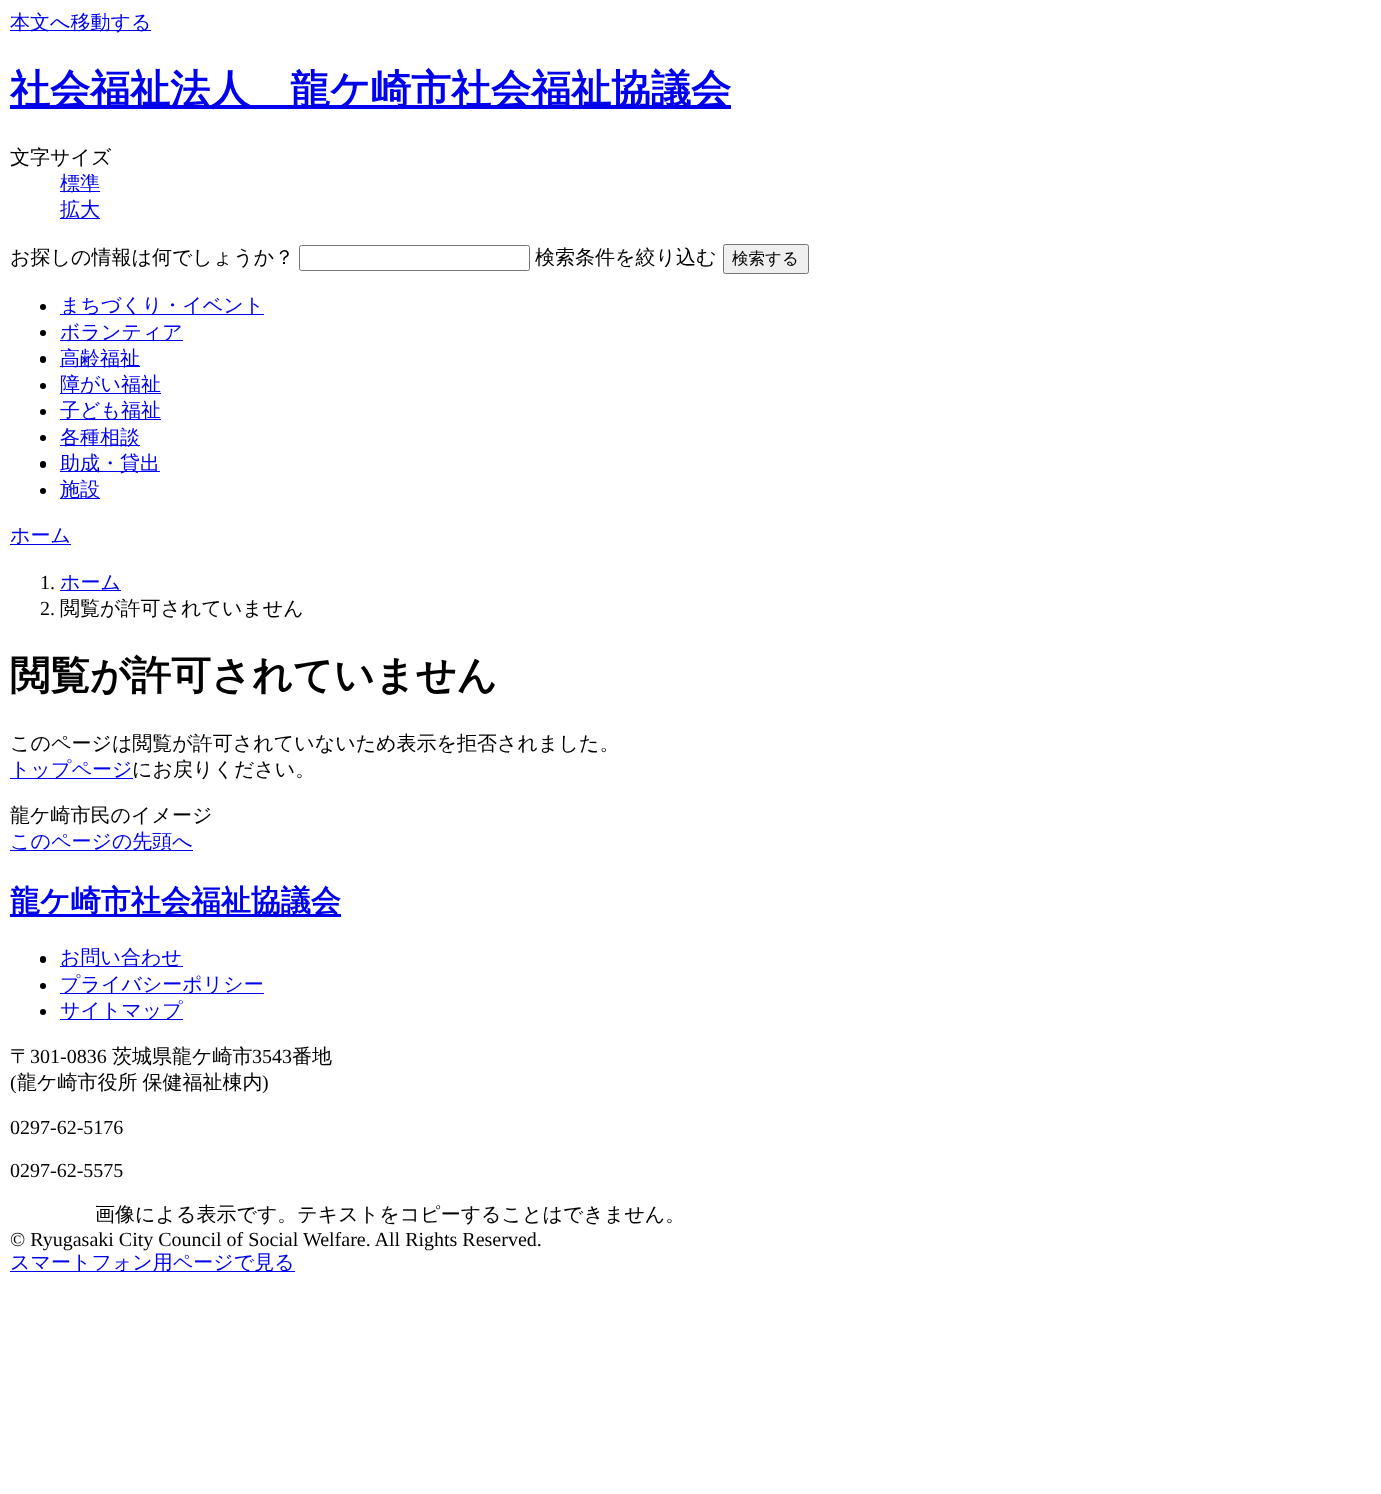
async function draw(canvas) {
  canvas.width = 1381;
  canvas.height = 1494;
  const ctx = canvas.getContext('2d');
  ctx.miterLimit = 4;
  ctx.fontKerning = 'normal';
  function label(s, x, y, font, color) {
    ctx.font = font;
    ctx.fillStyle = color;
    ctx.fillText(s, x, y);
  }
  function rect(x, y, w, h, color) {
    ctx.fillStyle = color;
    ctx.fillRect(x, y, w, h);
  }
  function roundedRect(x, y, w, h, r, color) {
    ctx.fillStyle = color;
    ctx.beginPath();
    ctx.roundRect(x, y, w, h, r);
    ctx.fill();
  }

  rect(0, 0, 1381, 1494, '#fff');
  rect(10, 30, 141, 1, '#00e');
  label('本文へ移動する', 10, 29, '500 20px WenQuanYi Zen Hei', '#00e');
  rect(10, 105, 721, 4, '#00e');
  label('社会福祉法人　龍ケ崎市社会福祉協議会', 10, 103, 'bold 40px WenQuanYi Zen Hei', '#00e');
  label('文字サイズ', 10, 164, '500 20px WenQuanYi Zen Hei', '#000');
  rect(60, 191, 40, 1, '#00e');
  label('標準', 60, 190, '500 20px WenQuanYi Zen Hei', '#00e');
  rect(60, 218, 40, 1, '#00e');
  label('拡大', 60, 216, '500 20px WenQuanYi Zen Hei', '#00e');
  label('お探しの情報は何でしょうか？', 10, 264, '500 20px WenQuanYi Zen Hei', '#000');
  ctx.beginPath();
  ctx.roundRect(299.5, 245.5, 230, 25, 2);
  ctx.strokeStyle = '#767676';
  ctx.stroke();
  label('検索条件を絞り込む', 535, 264, '500 20px WenQuanYi Zen Hei', '#000');
  ctx.fillStyle = '#efefef';
  ctx.beginPath();
  ctx.roundRect(723.5, 244.5, 85, 29, 2);
  ctx.fill();
  ctx.stroke();
  label('検索する', 732, 264, '500 16.5px WenQuanYi Zen Hei', '#000');
  ctx.beginPath();
  ctx.arc(43, 307, 3, 0, 2 * Math.PI);
  ctx.fill();
  rect(60, 314, 204, 1, '#00e');
  label('まちづくり・イベント', 60, 312, '500 20px WenQuanYi Zen Hei', '#00e');
  ctx.fillStyle = '#000';
  ctx.beginPath();
  ctx.arc(43, 333, 3, 0, 2 * Math.PI);
  ctx.fill();
  rect(60, 340, 123, 1, '#00e');
  label('ボランティア', 60, 339, '500 20px WenQuanYi Zen Hei', '#00e');
  roundedRect(40, 356, 6, 7, 3, '#000');
  rect(60, 366, 80, 1, '#00e');
  label('高齢福祉', 60, 365, '500 20px WenQuanYi Zen Hei', '#00e');
  ctx.fillStyle = '#000';
  ctx.beginPath();
  ctx.arc(43, 386, 3, 0, 2 * Math.PI);
  ctx.fill();
  rect(60, 393, 101, 1, '#00e');
  label('障がい福祉', 60, 391, '500 20px WenQuanYi Zen Hei', '#00e');
  ctx.fillStyle = '#000';
  ctx.beginPath();
  ctx.arc(43, 412, 3, 0, 2 * Math.PI);
  ctx.fill();
  rect(60, 419, 101, 1, '#00e');
  label('子ども福祉', 60, 417, '500 20px WenQuanYi Zen Hei', '#00e');
  ctx.fillStyle = '#000';
  ctx.beginPath();
  ctx.arc(43, 438, 3, 0, 2 * Math.PI);
  ctx.fill();
  rect(60, 445, 80, 1, '#00e');
  label('各種相談', 60, 444, '500 20px WenQuanYi Zen Hei', '#00e');
  roundedRect(40, 461, 6, 7, 3, '#000');
  rect(60, 471, 100, 1, '#00e');
  label('助成・貸出', 60, 470, '500 20px WenQuanYi Zen Hei', '#00e');
  ctx.fillStyle = '#000';
  ctx.beginPath();
  ctx.arc(43, 491, 3, 0, 2 * Math.PI);
  ctx.fill();
  rect(60, 498, 40, 1, '#00e');
  label('施設', 60, 496, '500 20px WenQuanYi Zen Hei', '#00e');
  rect(10, 544, 61, 1, '#00e');
  label('ホーム', 10, 542, '500 20px WenQuanYi Zen Hei', '#00e');
  label('1.', 40, 589, '20px Liberation Serif', '#000');
  rect(60, 590, 61, 1, '#00e');
  label('ホーム', 60, 589, '500 20px WenQuanYi Zen Hei', '#00e');
  label('2.', 40, 615, '20px Liberation Serif', '#000');
  label('閲覧が許可されていません', 60, 615, '500 20px WenQuanYi Zen Hei', '#000');
  label('閲覧が許可されていません', 10, 689, 'bold 40px WenQuanYi Zen Hei', '#000');
  label('このページは閲覧が許可されていないため表示を拒否されました。', 10, 750, '500 20px WenQuanYi Zen Hei', '#000');
  rect(10, 778, 123, 1, '#00e');
  label('トップページ', 10, 776, '500 20px WenQuanYi Zen Hei', '#00e');
  label('にお戻りください。', 132, 776, '500 20px WenQuanYi Zen Hei', '#000');
  label('龍ケ崎市民のイメージ', 10, 822, '500 20px WenQuanYi Zen Hei', '#000');
  rect(10, 850, 183, 1, '#00e');
  label('このページの先頭へ', 10, 848, '500 20px WenQuanYi Zen Hei', '#00e');
  rect(10, 914, 331, 3, '#00e');
  label('龍ケ崎市社会福祉協議会', 10, 911, 'bold 30px WenQuanYi Zen Hei', '#00e');
  roundedRect(40, 956, 6, 7, 3, '#000');
  rect(60, 966, 123, 1, '#00e');
  label('お問い合わせ', 60, 964, '500 20px WenQuanYi Zen Hei', '#00e');
  ctx.fillStyle = '#000';
  ctx.beginPath();
  ctx.arc(43, 986, 3, 0, 2 * Math.PI);
  ctx.fill();
  rect(60, 993, 204, 1, '#00e');
  label('プライバシーポリシー', 60, 991, '500 20px WenQuanYi Zen Hei', '#00e');
  ctx.fillStyle = '#000';
  ctx.beginPath();
  ctx.arc(43, 1012, 3, 0, 2 * Math.PI);
  ctx.fill();
  rect(60, 1019, 123, 1, '#00e');
  label('サイトマップ', 60, 1017, '500 20px WenQuanYi Zen Hei', '#00e');
  label('〒', 10, 1063, '500 20px WenQuanYi Zen Hei', '#000');
  label('301-0836', 30, 1063, '20px Liberation Serif', '#000');
  label('茨城県龍ケ崎市', 112, 1063, '500 20px WenQuanYi Zen Hei', '#000');
  label('3543', 252, 1063, '20px Liberation Serif', '#000');
  label('番地', 292, 1063, '500 20px WenQuanYi Zen Hei', '#000');
  label('(', 10, 1089, '20px Liberation Serif', '#000');
  ctx.wordSpacing = '-1px';
  label('龍ケ崎市役所 保健福祉棟内', 17, 1089, '500 20px WenQuanYi Zen Hei', '#000');
  ctx.wordSpacing = '0px';
  label(')', 262, 1089, '20px Liberation Serif', '#000');
  label('0297-62-5176', 10, 1134, '20px Liberation Serif', '#000');
  label('0297-62-5575', 10, 1177, '20px Liberation Serif', '#000');
  label('画像による表示です。テキストをコピーすることはできません。', 95, 1221, '500 20px WenQuanYi Zen Hei', '#000');
  label('© Ryugasaki City Council of Social Welfare. All Rights Reserved.', 10, 1246, '20px Liberation Serif', '#000');
  rect(10, 1271, 285, 1, '#00e');
  label('スマートフォン用ページで見る', 10, 1269, '500 20px WenQuanYi Zen Hei', '#00e');
}

draw(document.querySelector('canvas'));
